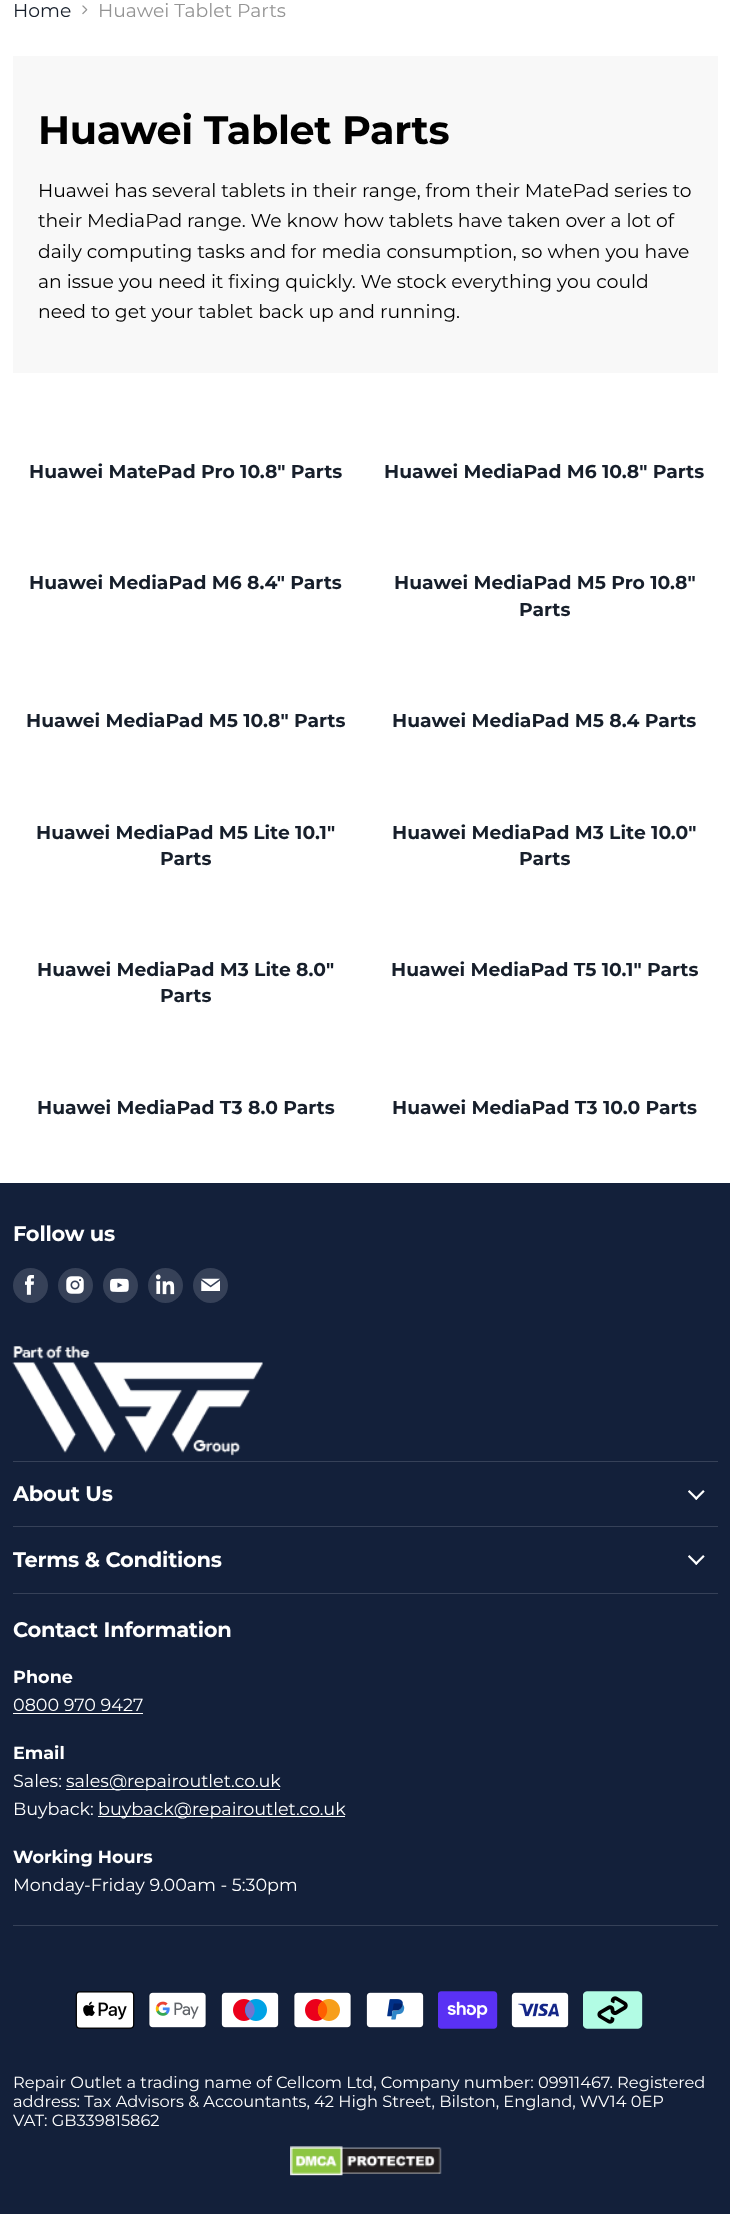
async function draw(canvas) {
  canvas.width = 730;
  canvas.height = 2214;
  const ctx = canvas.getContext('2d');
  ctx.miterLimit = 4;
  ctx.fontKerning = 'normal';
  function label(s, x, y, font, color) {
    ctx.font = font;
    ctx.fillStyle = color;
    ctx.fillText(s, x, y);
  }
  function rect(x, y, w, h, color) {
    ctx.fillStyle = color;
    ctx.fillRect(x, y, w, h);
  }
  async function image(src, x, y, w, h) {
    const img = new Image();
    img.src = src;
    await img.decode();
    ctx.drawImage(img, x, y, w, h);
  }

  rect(0, 0, 730, 2214, '#fff');
  label('Home', 13, 17, '18.75px Montserrat', '#171f2b');
  await image('assets/img1.png', 82, 5, 6, 10);
  label('Huawei Tablet Parts', 98, 17, '18.75px Montserrat', '#949494');
  rect(13, 56, 705, 317, '#f8f8f8');
  ctx.letterSpacing = '-0.4px';
  label('Huawei Tablet Parts', 38, 144, 'bold 39.75px Montserrat', '#000');
  ctx.letterSpacing = '0px';
  label('Huawei has several tablets in their range, from their MatePad series to', 38, 197, '18.75px Montserrat', '#000');
  label('their MediaPad range. We know how tablets have taken over a lot of', 38, 227, '18.75px Montserrat', '#000');
  label('daily computing tasks and for media consumption, so when you have', 38, 258, '18.75px Montserrat', '#000');
  label('an issue you need it fixing quickly. We stock everything you could', 38, 288, '18.75px Montserrat', '#000');
  label('need to get your tablet back up and running.', 38, 318, '18.75px Montserrat', '#000');
  label('Huawei MatePad Pro 10.8" Parts', 29, 478, 'bold 18.75px Montserrat', '#171f2b');
  label('Huawei MediaPad M6 10.8" Parts', 384, 478, 'bold 18.75px Montserrat', '#171f2b');
  label('Huawei MediaPad M6 8.4" Parts', 29, 589, 'bold 18.75px Montserrat', '#171f2b');
  label('Huawei MediaPad M5 Pro 10.8"', 394, 589, 'bold 18.75px Montserrat', '#171f2b');
  label('Parts', 519, 616, 'bold 18.75px Montserrat', '#171f2b');
  label('Huawei MediaPad M5 10.8" Parts', 26, 727, 'bold 18.75px Montserrat', '#171f2b');
  label('Huawei MediaPad M5 8.4 Parts', 392, 727, 'bold 18.75px Montserrat', '#171f2b');
  label('Huawei MediaPad M5 Lite 10.1"', 36, 839, 'bold 18.75px Montserrat', '#171f2b');
  label('Parts', 160, 865, 'bold 18.75px Montserrat', '#171f2b');
  label('Huawei MediaPad M3 Lite 10.0"', 392, 839, 'bold 18.75px Montserrat', '#171f2b');
  label('Parts', 519, 865, 'bold 18.75px Montserrat', '#171f2b');
  label('Huawei MediaPad M3 Lite 8.0"', 37, 976, 'bold 18.75px Montserrat', '#171f2b');
  label('Parts', 160, 1002, 'bold 18.75px Montserrat', '#171f2b');
  label('Huawei MediaPad T5 10.1" Parts', 391, 976, 'bold 18.75px Montserrat', '#171f2b');
  label('Huawei MediaPad T3 8.0 Parts', 37, 1114, 'bold 18.75px Montserrat', '#171f2b');
  label('Huawei MediaPad T3 10.0 Parts', 392, 1114, 'bold 18.75px Montserrat', '#171f2b');
  rect(0, 1183, 730, 1031, '#13203a');
  rect(13, 1461, 705, 1, '#364158');
  ctx.letterSpacing = '-0.25px';
  label('Follow us', 13, 1241, 'bold 21px Montserrat', '#fff');
  ctx.fillStyle = '#364158';
  ctx.beginPath();
  ctx.arc(30.5, 1285.5, 17.5, 0, 2 * Math.PI);
  ctx.fill();
  await image('assets/img2.png', 25, 1275, 9, 20);
  ctx.beginPath();
  ctx.arc(75.5, 1285.5, 17.5, 0, 2 * Math.PI);
  ctx.fill();
  await image('assets/img3.png', 66, 1276, 18, 18);
  ctx.beginPath();
  ctx.arc(120.5, 1285.5, 17.5, 0, 2 * Math.PI);
  ctx.fill();
  await image('assets/img4.png', 110, 1278, 19, 14);
  ctx.beginPath();
  ctx.arc(165.5, 1285.5, 17.5, 0, 2 * Math.PI);
  ctx.fill();
  await image('assets/img5.png', 155, 1274, 20, 21);
  ctx.beginPath();
  ctx.arc(210.5, 1285.5, 17.5, 0, 2 * Math.PI);
  ctx.fill();
  await image('assets/img6.png', 201, 1278, 19, 13);
  await image('assets/img7.png', 12, 1345, 251, 111);
  rect(13, 1526, 705, 1, '#364158');
  label('About Us', 13, 1501, 'bold 21px Montserrat', '#fff');
  await image('assets/img8.png', 688, 1490, 17, 10);
  rect(13, 1593, 705, 1, '#364158');
  label('Terms & Conditions', 13, 1567, 'bold 21px Montserrat', '#fff');
  await image('assets/img8.png', 688, 1555, 17, 10);
  rect(13, 1925, 705, 1, '#364158');
  label('Contact Information', 13, 1637, 'bold 21px Montserrat', '#fff');
  ctx.letterSpacing = '0px';
  label('Phone', 13, 1683, 'bold 17.6px Montserrat', '#fff');
  label('0800 970 9427', 13, 1711, '17.6px Montserrat', '#fff');
  rect(13, 1713, 130, 1, '#fff');
  label('Email', 13, 1759, 'bold 17.6px Montserrat', '#fff');
  label('Sales:', 13, 1787, '17.6px Montserrat', '#fff');
  rect(66, 1789, 214, 1, '#fff');
  label('sales@repairoutlet.co.uk', 66, 1787, '17.6px Montserrat', '#fff');
  label('Buyback:', 13, 1815, '17.6px Montserrat', '#fff');
  rect(98, 1816, 247, 1, '#fff');
  label('buyback@repairoutlet.co.uk', 98, 1815, '17.6px Montserrat', '#fff');
  label('Working Hours', 13, 1863, 'bold 17.6px Montserrat', '#fff');
  label('Monday-Friday 9.00am - 5:30pm', 13, 1891, '17.6px Montserrat', '#fff');
  await image('assets/img9.png', 75, 1991, 60, 38);
  await image('assets/img10.png', 148, 1992, 59, 36);
  await image('assets/img11.png', 221, 1992, 58, 36);
  await image('assets/img12.png', 293, 1992, 59, 36);
  await image('assets/img13.png', 366, 1992, 58, 36);
  await image('assets/img14.png', 438, 1991, 60, 38);
  await image('assets/img15.png', 511, 1992, 58, 36);
  await image('assets/img16.png', 583, 1991, 60, 38);
  label('Repair Outlet a trading name of Cellcom Ltd, Company number: 09911467. Registered', 13, 2088, '16.25px Montserrat', '#fff');
  label('address: Tax Advisors & Accountants, 42 High Street, Bilston, England, WV14 0EP', 13, 2107, '16.25px Montserrat', '#fff');
  label('VAT: GB339815862', 13, 2126, '16.25px Montserrat', '#fff');
  await image('assets/img17.png', 290, 2146, 152, 30);
}

draw(document.querySelector('canvas'));
